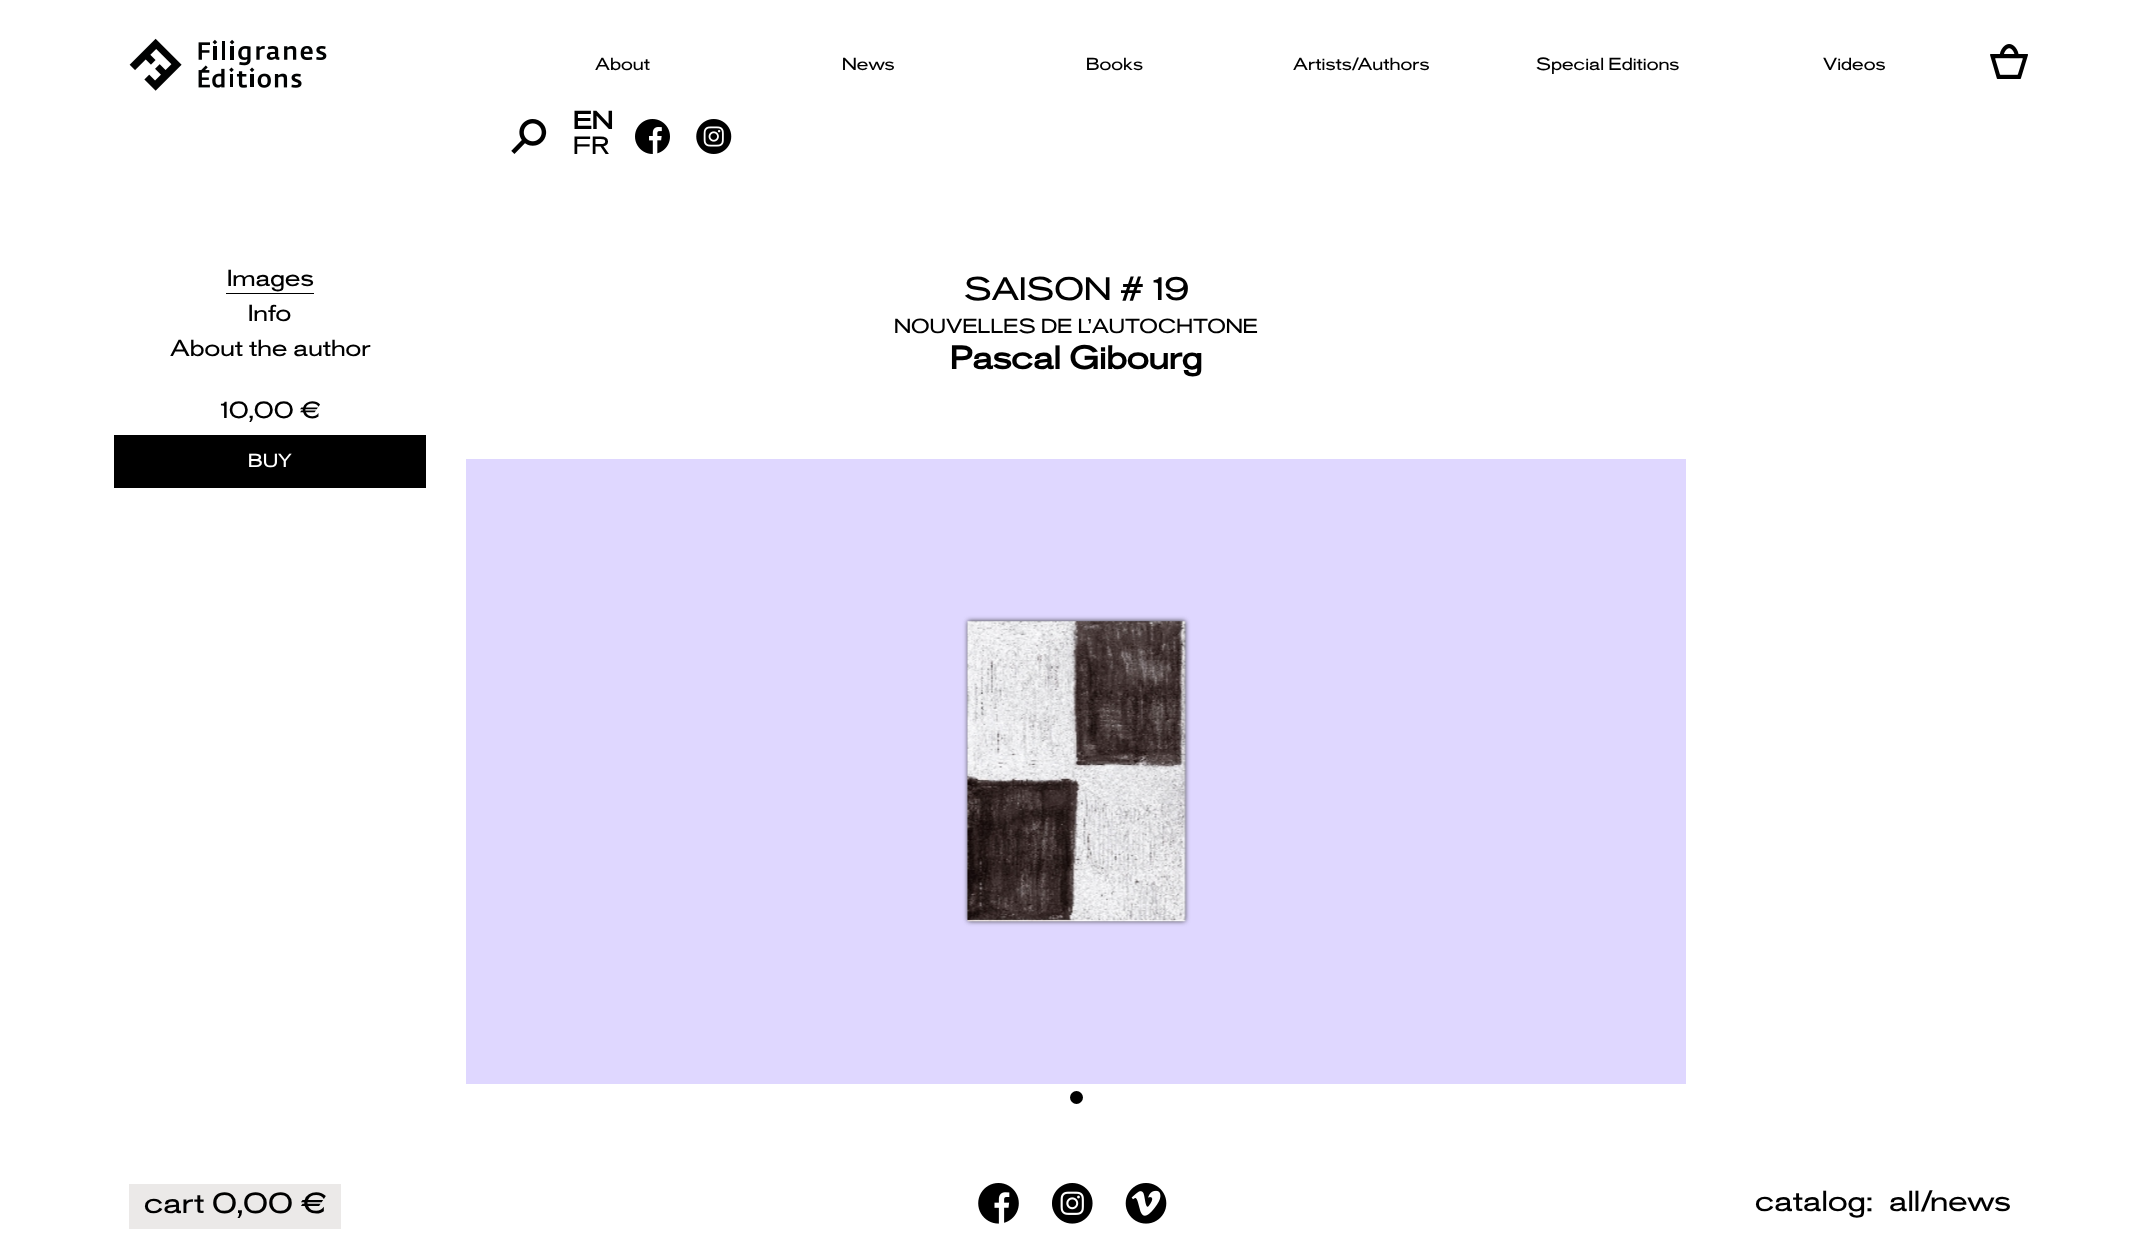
async function draw(canvas) {
  canvas.width = 2152;
  canvas.height = 1233;
  const ctx = canvas.getContext('2d');
  ctx.miterLimit = 4;
  ctx.fontKerning = 'normal';
  function label(s, x, y, font, color) {
    ctx.font = font;
    ctx.fillStyle = color;
    ctx.fillText(s, x, y);
  }
  function rect(x, y, w, h, color) {
    ctx.fillStyle = color;
    ctx.fillRect(x, y, w, h);
  }
  async function image(src, x, y, w, h) {
    const img = new Image();
    img.src = src;
    await img.decode();
    ctx.drawImage(img, x, y, w, h);
  }

  rect(0, 0, 2152, 1233, '#fff');
  await image('assets/img1.png', 129, 38, 198, 53);
  label('About', 595, 70, '17.5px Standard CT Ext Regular', '#000');
  label('News', 842, 70, '17.5px Standard CT Ext Regular', '#000');
  label('Books', 1086, 70, '17.5px Standard CT Ext Regular', '#000');
  label('Artists/Authors', 1293, 70, '17.5px Standard CT Ext Regular', '#000');
  label('Special Editions', 1536, 70, '17.5px Standard CT Ext Regular', '#000');
  label('Videos', 1823, 70, '17.5px Standard CT Ext Regular', '#000');
  await image('assets/img2.png', 1990, 44, 38, 35);
  await image('assets/img3.png', 511, 119, 36, 35);
  label('EN', 573, 129, 'bold 25px Standard CT Ext Regular', '#000');
  label('FR', 573, 154, '25px Standard CT Ext Regular', '#000');
  await image('assets/img4.png', 635, 119, 35, 35);
  await image('assets/img5.png', 696, 119, 36, 35);
  label('Images', 227, 286, '23.25px Standard CT Ext Regular', '#000');
  rect(226, 293, 88, 1, '#000');
  label('Info', 248, 321, '23.25px Standard CT Ext Regular', '#000');
  label('About the author', 170, 356, '23.25px Standard CT Ext Regular', '#000');
  label('10,00 €', 220, 418, '23.25px Standard CT Ext Regular', '#000');
  rect(114, 435, 312, 53, '#000');
  label('BUY', 248, 467, '19px Standard CT Ext Regular', '#fff');
  label('SAISON # 19', 964, 300, '32.5px Standard CT Ext Regular', '#000');
  label('NOUVELLES DE L’AUTOCHTONE', 894, 333, '20.25px Standard CT Ext Regular', '#000');
  label('Pascal Gibourg', 950, 369, 'bold 32.5px Standard CT Ext Regular', '#000');
  rect(466, 459, 1220, 625, '#dfd7ff');
  ctx.fillStyle = '#333';
  ctx.filter = 'blur(2.5px)';
  ctx.beginPath();
  ctx.rect(968, 621, 217, 300);
  ctx.fill();
  ctx.filter = 'none';
  await image('assets/img6.png', 967, 621, 219, 301);
  ctx.fillStyle = '#000';
  ctx.beginPath();
  ctx.arc(1076.5, 1097.5, 6.5, 0, 2 * Math.PI);
  ctx.fill();
  rect(129, 1184, 212, 45, '#ebe9e8');
  label('cart 0,00 €', 144, 1213, '29px Standard CT Ext Regular', '#000');
  await image('assets/img7.png', 978, 1183, 41, 41);
  await image('assets/img8.png', 1052, 1183, 41, 41);
  await image('assets/img9.png', 1125, 1183, 42, 41);
  label('catalog:', 1755, 1211, '29px Standard CT Ext Regular', '#000');
  label('all/', 1889, 1211, '29px Standard CT Ext Regular', '#000');
  label('news', 1930, 1211, '29px Standard CT Ext Regular', '#000');
}

draw(document.querySelector('canvas'));
